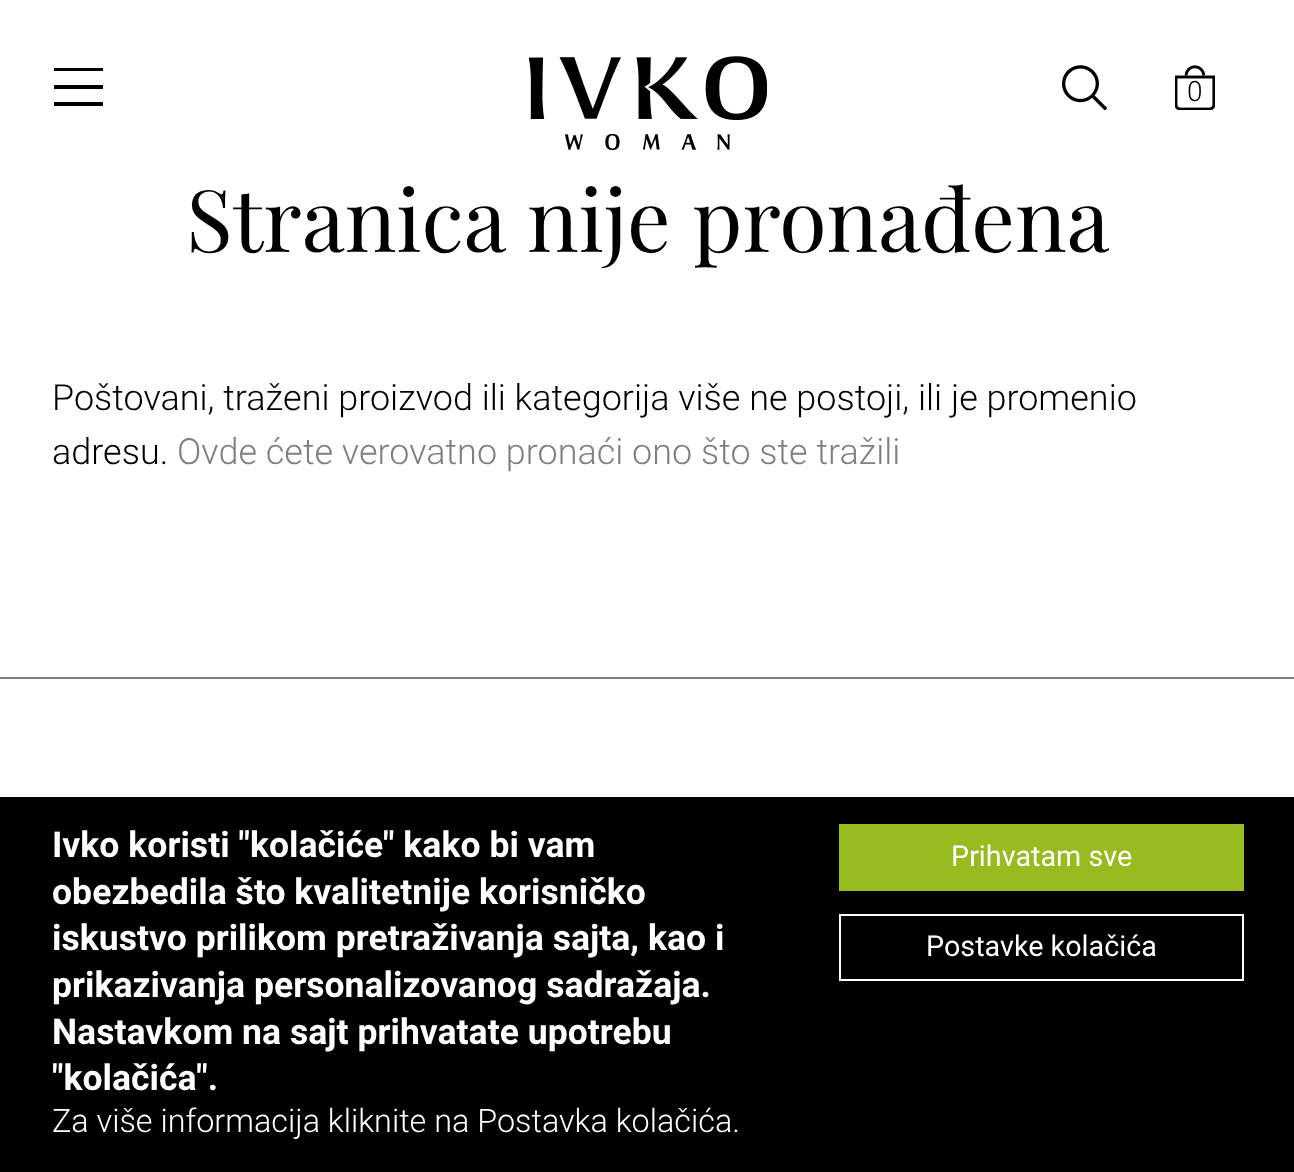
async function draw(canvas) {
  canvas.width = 1294;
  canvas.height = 1172;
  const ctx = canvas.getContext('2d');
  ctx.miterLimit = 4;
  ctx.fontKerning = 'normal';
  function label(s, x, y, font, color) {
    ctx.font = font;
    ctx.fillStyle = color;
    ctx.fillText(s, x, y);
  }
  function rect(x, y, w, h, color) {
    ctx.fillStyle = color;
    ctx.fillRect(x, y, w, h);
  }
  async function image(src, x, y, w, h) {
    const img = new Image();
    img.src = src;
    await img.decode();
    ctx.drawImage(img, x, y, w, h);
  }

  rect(0, 0, 1294, 1172, '#fff');
  rect(54, 68, 49, 3, '#000');
  rect(54, 85, 49, 4, '#000');
  rect(54, 102, 49, 4, '#000');
  await image('assets/img1.png', 529, 56, 238, 95);
  await image('assets/img2.png', 1062, 65, 45, 45);
  await image('assets/img3.png', 1175, 65, 40, 45);
  label('0', 1187, 101, '300 28px Roboto', '#000');
  label('Stranica nije pronađena', 186, 252, '86.4px Playfair Display', '#000');
  label('Poštovani, traženi proizvod ili kategorija više ne postoji, ili je promenio', 52, 410, '300 36px Roboto', '#000');
  label('adresu.', 52, 464, '300 36px Roboto', '#000');
  label('Ovde ćete verovatno pronaći ono što ste tražili', 177, 464, '300 36px Roboto', '#808080');
  rect(0, 677, 1294, 2, '#808080');
  rect(0, 797, 1294, 375, '#000');
  label('Ivko koristi "kolačiće" kako bi vam', 52, 857, 'bold 35.6px Roboto', '#fff');
  label('obezbedila što kvalitetnije korisničko', 52, 904, 'bold 35.6px Roboto', '#fff');
  label('iskustvo prilikom pretraživanja sajta, kao i', 52, 950, 'bold 35.6px Roboto', '#fff');
  label('prikazivanja personalizovanog sadražaja.', 52, 997, 'bold 35.6px Roboto', '#fff');
  label('Nastavkom na sajt prihvatate upotrebu', 52, 1044, 'bold 35.6px Roboto', '#fff');
  label('"kolačića".', 52, 1090, 'bold 35.6px Roboto', '#fff');
  label('Za više informacija kliknite na Postavka kolačića.', 52, 1132, '300 32.4px Roboto', '#fff');
  rect(839, 824, 405, 67, '#98bb1f');
  label('Prihvatam sve', 951, 866, '28.75px Roboto', '#fff');
  ctx.strokeStyle = '#fff';
  ctx.lineWidth = 2;
  ctx.strokeRect(840, 915, 403, 65);
  label('Postavke kolačića', 926, 956, '28.75px Roboto', '#fff');
}

draw(document.querySelector('canvas'));
